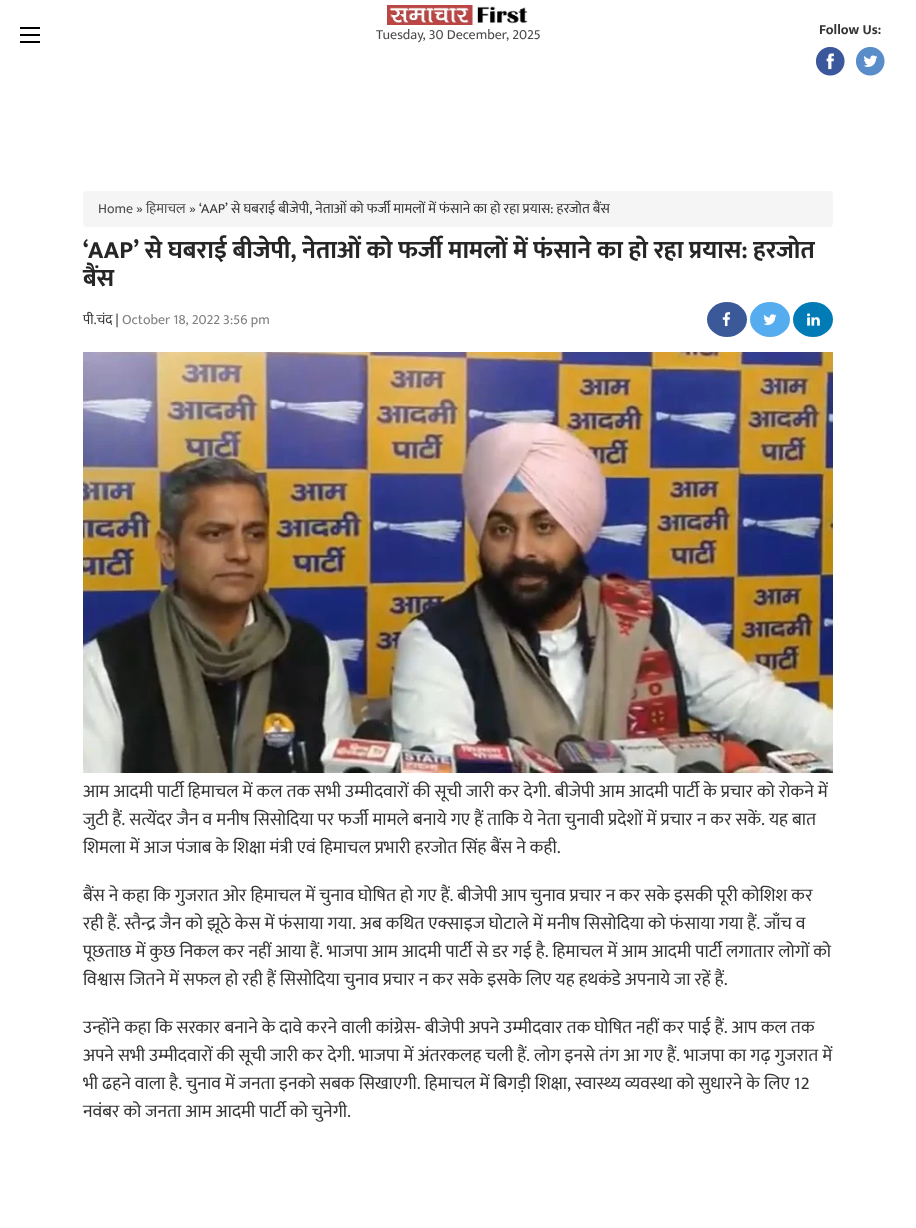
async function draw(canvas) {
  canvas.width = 916;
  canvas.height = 1228;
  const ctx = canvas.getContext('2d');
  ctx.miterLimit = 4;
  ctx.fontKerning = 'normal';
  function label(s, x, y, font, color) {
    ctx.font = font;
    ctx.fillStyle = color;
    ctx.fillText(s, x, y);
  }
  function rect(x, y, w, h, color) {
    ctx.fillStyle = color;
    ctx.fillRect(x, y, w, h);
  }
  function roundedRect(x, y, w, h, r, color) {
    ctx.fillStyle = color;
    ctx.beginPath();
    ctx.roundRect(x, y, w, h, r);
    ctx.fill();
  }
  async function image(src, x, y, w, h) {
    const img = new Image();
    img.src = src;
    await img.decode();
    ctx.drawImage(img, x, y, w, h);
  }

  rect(0, 0, 916, 1228, '#fff');
  rect(20, 27, 20, 2, '#000');
  rect(20, 34, 20, 2, '#000');
  rect(20, 41, 20, 2, '#000');
  await image('assets/img1.png', 387, 5, 141, 20);
  label('Tuesday, 30 December, 2025', 376, 39, '14px Mukta', '#4c4c4c');
  label('Follow Us:', 819, 34, 'bold 14px Mukta', '#333');
  await image('assets/img2.png', 815, 46, 30, 30);
  await image('assets/img3.png', 855, 46, 30, 30);
  roundedRect(83, 191, 750, 36, 4, '#f5f5f5');
  label('Home', 98, 213, '14px Mukta', '#4c4c4c');
  label('»', 136, 213, '14px Mukta', '#333');
  label('हिमाचल', 146, 213, '14px Mukta', '#4c4c4c');
  label('» ‘AAP’ से घबराई बीजेपी, नेताओं को फर्जी मामलों में फंसाने का हो रहा प्रयास: हरजोत बैंस', 189, 213, '14px Mukta', '#333');
  label('‘AAP’ से घबराई बीजेपी, नेताओं को फर्जी मामलों में फंसाने का हो रहा प्रयास: हरजोत', 83, 258, 'bold 25px Mukta', '#262626');
  label('बैंस', 83, 286, 'bold 25px Mukta', '#262626');
  label('पी.चंद |', 83, 324, '14px Mukta', '#333');
  label('October 18, 2022 3:56 pm', 122, 324, '14px Mukta', '#808080');
  ctx.fillStyle = '#3b5998';
  ctx.beginPath();
  ctx.ellipse(727, 319.5, 20, 17.5, 0, 0, 2 * Math.PI);
  ctx.fill();
  await image('assets/img4.png', 722, 312, 9, 15);
  ctx.fillStyle = '#55acee';
  ctx.beginPath();
  ctx.ellipse(770, 319.5, 20, 17.5, 0, 0, 2 * Math.PI);
  ctx.fill();
  await image('assets/img5.png', 763, 314, 14, 11);
  ctx.fillStyle = '#007bb5';
  ctx.beginPath();
  ctx.ellipse(813, 319.5, 20, 17.5, 0, 0, 2 * Math.PI);
  ctx.fill();
  await image('assets/img6.png', 807, 313, 13, 13);
  await image('assets/img7.png', 83, 352, 750, 421);
  label('आम आदमी पार्टी हिमाचल में कल तक सभी उम्मीदवारों की सूची जारी कर देगी. बीजेपी आम आदमी पार्टी के प्रचार को रोकने में', 83, 797, '18px Mukta', '#333');
  label('जुटी हैं. सत्येंदर जैन व मनीष सिसोदिया पर फर्जी मामले बनाये गए हैं ताकि ये नेता चुनावी प्रदेशों में प्रचार न कर सकें. यह बात', 83, 825, '18px Mukta', '#333');
  label('शिमला में आज पंजाब के शिक्षा मंत्री एवं हिमाचल प्रभारी हरजोत सिंह बैंस ने कही.', 83, 853, '18px Mukta', '#333');
  label('बैंस ने कहा कि गुजरात ओर हिमाचल में चुनाव घोषित हो गए हैं. बीजेपी आप चुनाव प्रचार न कर सके इसकी पूरी कोशिश कर', 83, 901, '18px Mukta', '#333');
  label('रही हैं. स्तैन्द्र जैन को झूठे केस में फंसाया गया. अब कथित एक्साइज घोटाले में मनीष सिसोदिया को फंसाया गया हैं. जाँच व', 83, 929, '18px Mukta', '#333');
  label('पूछताछ में कुछ निकल कर नहीं आया हैं. भाजपा आम आदमी पार्टी से डर गई है. हिमाचल में आम आदमी पार्टी लगातार लोगों को', 83, 957, '18px Mukta', '#333');
  label('विश्वास जितने में सफल हो रही हैं सिसोदिया चुनाव प्रचार न कर सके इसके लिए यह हथकंडे अपनाये जा रहें हैं.', 83, 985, '18px Mukta', '#333');
  label('उन्होंने कहा कि सरकार बनाने के दावे करने वाली कांग्रेस- बीजेपी अपने उम्मीदवार तक घोषित नहीं कर पाई हैं. आप कल तक', 83, 1033, '18px Mukta', '#333');
  label('अपने सभी उम्मीदवारों की सूची जारी कर देगी. भाजपा में अंतरकलह चली हैं. लोग इनसे तंग आ गए हैं. भाजपा का गढ़ गुजरात में', 83, 1061, '18px Mukta', '#333');
  label('भी ढहने वाला है. चुनाव में जनता इनको सबक सिखाएगी. हिमाचल में बिगड़ी शिक्षा, स्वास्थ्य व्यवस्था को सुधारने के लिए 12', 83, 1089, '18px Mukta', '#333');
  label('नवंबर को जनता आम आदमी पार्टी को चुनेगी.', 83, 1117, '18px Mukta', '#333');
}

draw(document.querySelector('canvas'));
